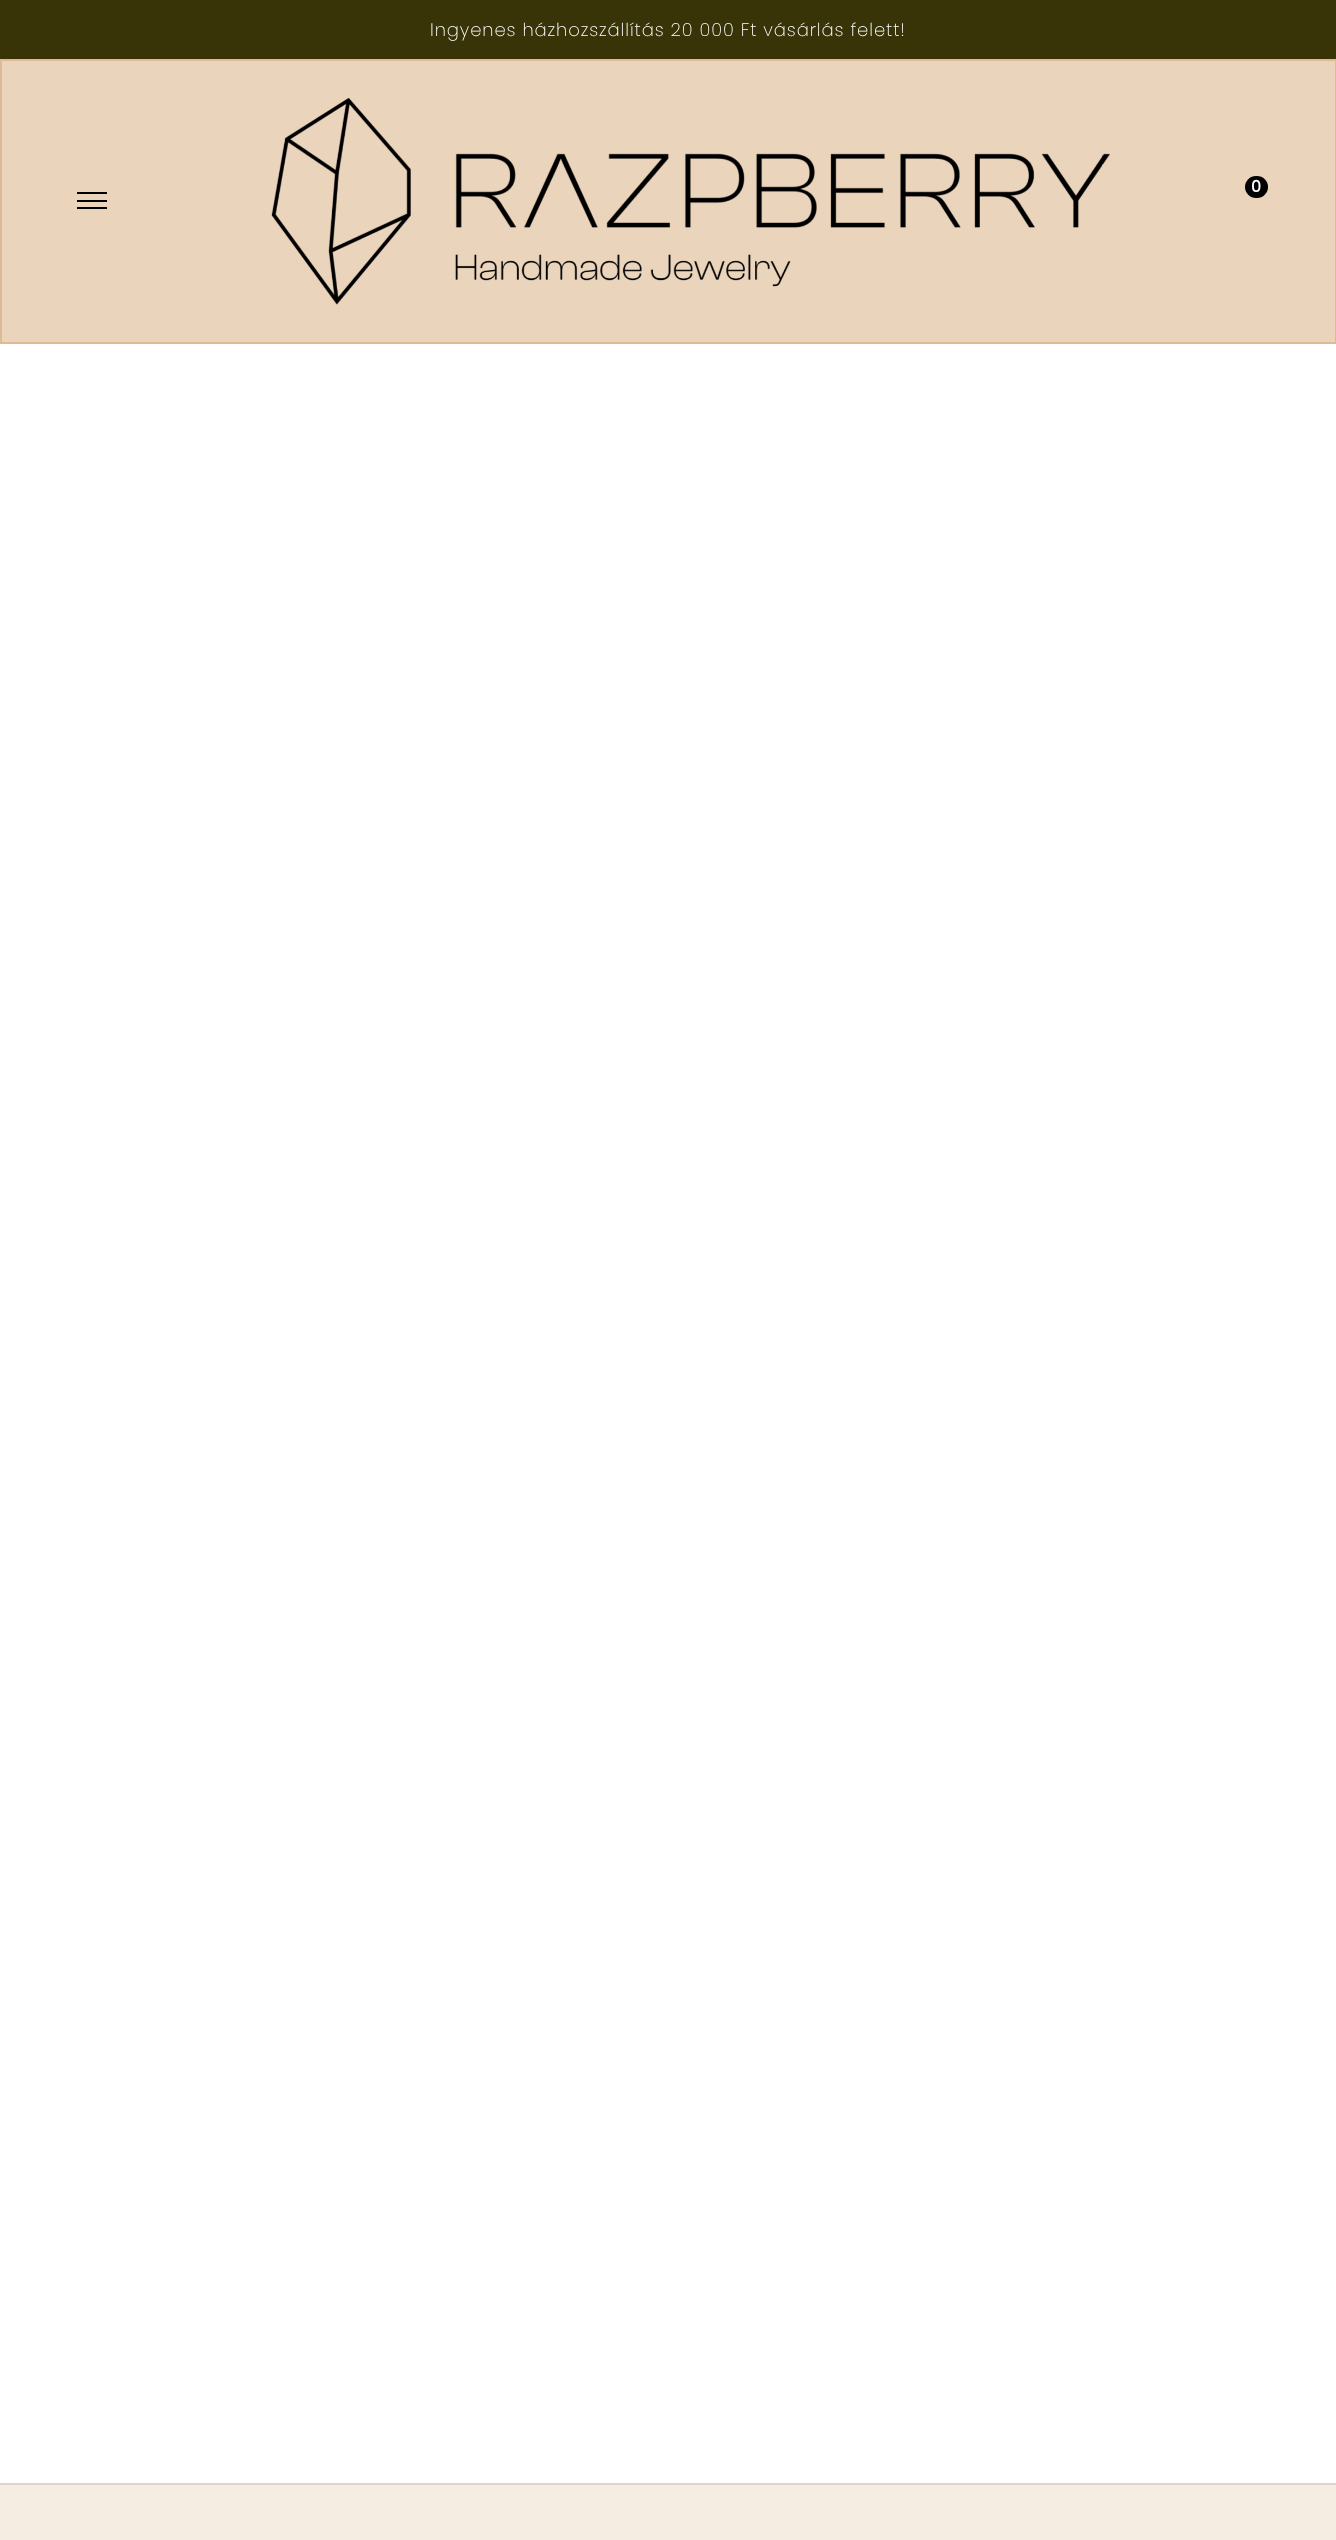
async function draw(canvas) {
  canvas.width = 1336;
  canvas.height = 2540;
  const ctx = canvas.getContext('2d');
  ctx.miterLimit = 4;
  ctx.fontKerning = 'normal';
  function label(s, x, y, font, color) {
    ctx.font = font;
    ctx.fillStyle = color;
    ctx.fillText(s, x, y);
  }
  function rect(x, y, w, h, color) {
    ctx.fillStyle = color;
    ctx.fillRect(x, y, w, h);
  }
  function roundedRect(x, y, w, h, r, color) {
    ctx.fillStyle = color;
    ctx.beginPath();
    ctx.roundRect(x, y, w, h, r);
    ctx.fill();
  }
  async function image(src, x, y, w, h) {
    const img = new Image();
    img.src = src;
    await img.decode();
    ctx.drawImage(img, x, y, w, h);
  }

  rect(0, 0, 1336, 2540, '#fff');
  rect(0, 0, 1336, 59, '#393308');
  ctx.letterSpacing = '0.9px';
  label('Ingyenes házhozszállítás 20 000 Ft vásárlás felett!', 430, 36, '200 18px Poppins', '#fff');
  ctx.fillStyle = '#ead4bb';
  ctx.beginPath();
  ctx.rect(1, 60, 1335, 283);
  ctx.fill();
  ctx.strokeStyle = '#debb94';
  ctx.lineWidth = 2;
  ctx.stroke();
  await image('assets/img1.png', 271, 98, 839, 207);
  roundedRect(1245, 176, 23, 22, 11, '#000');
  ctx.letterSpacing = '0px';
  label('0', 1251, 192, 'bold 16px Poppins', '#fff');
  rect(77, 200, 30, 2, '#000');
  rect(77, 192, 30, 2, '#000');
  rect(77, 207, 30, 2, '#000');
  rect(0, 2485, 1336, 55, '#f5ede1');
  rect(0, 2483, 1336, 2, '#ddd5cb');
}

draw(document.querySelector('canvas'));
